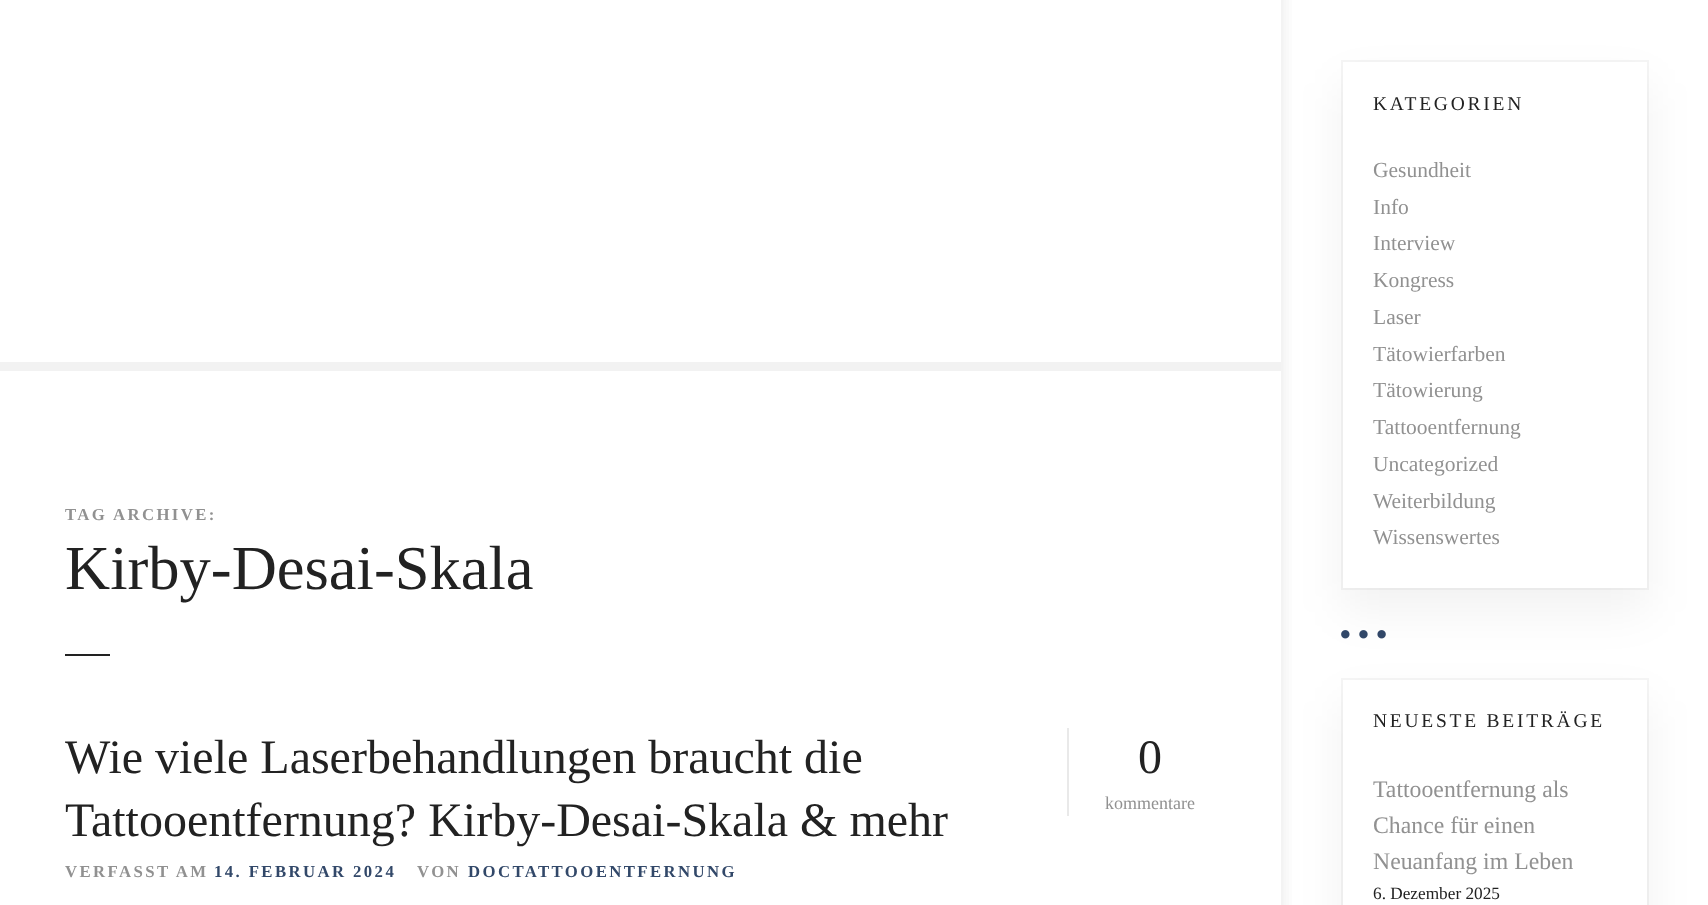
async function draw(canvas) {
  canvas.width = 1708;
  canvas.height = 905;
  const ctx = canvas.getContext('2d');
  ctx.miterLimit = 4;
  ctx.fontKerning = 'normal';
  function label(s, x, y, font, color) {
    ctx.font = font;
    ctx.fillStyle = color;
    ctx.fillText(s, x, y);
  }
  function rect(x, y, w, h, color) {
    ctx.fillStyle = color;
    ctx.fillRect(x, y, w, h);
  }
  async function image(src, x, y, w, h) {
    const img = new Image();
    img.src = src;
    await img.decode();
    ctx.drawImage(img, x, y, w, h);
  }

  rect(0, 0, 1708, 905, '#fff');
  rect(0, 362, 1281, 9, '#f2f2f2');
  ctx.letterSpacing = '2.4px';
  label('TAG ARCHIVE:', 65, 520, 'bold 16.75px Liberation Serif', '#919191');
  ctx.letterSpacing = '0px';
  label('Kirby-Desai-Skala', 65, 589, '62.5px Liberation Serif', '#222');
  rect(65, 654, 45, 2, '#222');
  rect(1289, 0, 3, 905, '#fcfcfc');
  rect(1286, 0, 3, 905, '#f9f9f9');
  rect(1284, 0, 2, 905, '#f7f7f7');
  rect(1283, 0, 1, 905, '#f5f5f5');
  rect(1281, 0, 2, 905, '#f3f3f3');
  await image('assets/img1.png', 1341, 630, 45, 9);
  ctx.fillStyle = '#0000000d';
  ctx.filter = 'blur(22.5px)';
  ctx.beginPath();
  ctx.roundRect(1341, 83, 308, 529, 8);
  ctx.fill();
  ctx.filter = 'none';
  ctx.strokeStyle = '#0000000a';
  ctx.lineWidth = 2;
  ctx.strokeRect(1342, 61, 306, 528);
  rect(1343, 62, 304, 526, '#fff');
  ctx.letterSpacing = '2.75px';
  label('KATEGORIEN', 1373, 110, '19.5px Liberation Serif', '#222');
  ctx.letterSpacing = '0px';
  label('Gesundheit', 1373, 177, '21.5px Liberation Serif', '#919191');
  label('Info', 1373, 214, '21.5px Liberation Serif', '#919191');
  label('Interview', 1373, 250, '21.5px Liberation Serif', '#919191');
  label('Kongress', 1373, 287, '21.5px Liberation Serif', '#919191');
  label('Laser', 1373, 324, '21.5px Liberation Serif', '#919191');
  label('Tätowierfarben', 1373, 361, '21.5px Liberation Serif', '#919191');
  label('Tätowierung', 1373, 397, '21.5px Liberation Serif', '#919191');
  label('Tattooentfernung', 1373, 434, '21.5px Liberation Serif', '#919191');
  label('Uncategorized', 1373, 471, '21.5px Liberation Serif', '#919191');
  label('Weiterbildung', 1373, 508, '21.5px Liberation Serif', '#919191');
  label('Wissenswertes', 1373, 544, '21.5px Liberation Serif', '#919191');
  ctx.fillStyle = '#0000000d';
  ctx.filter = 'blur(22.5px)';
  ctx.beginPath();
  ctx.roundRect(1341, 701, 308, 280, 8);
  ctx.fill();
  ctx.filter = 'none';
  ctx.strokeRect(1342, 679, 306, 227);
  rect(1343, 680, 304, 225, '#fff');
  ctx.letterSpacing = '2.75px';
  label('NEUESTE BEITRÄGE', 1373, 727, '19.5px Liberation Serif', '#222');
  ctx.letterSpacing = '0px';
  label('Tattooentfernung als', 1373, 797, '23.75px Liberation Serif', '#919191');
  label('Chance für einen', 1373, 833, '23.75px Liberation Serif', '#919191');
  label('Neuanfang im Leben', 1373, 869, '23.75px Liberation Serif', '#919191');
  label('6. Dezember 2025', 1373, 899, '17.25px Liberation Serif', '#222');
  label('Wie viele Laserbehandlungen braucht die', 65, 773, '48px Liberation Serif', '#222');
  label('Tattooentfernung? Kirby-Desai-Skala & mehr', 65, 836, '48px Liberation Serif', '#222');
  rect(1067, 728, 2, 88, '#e9e9e9');
  label('0', 1138, 773, '48px Liberation Serif', '#222');
  label('kommentare', 1105, 809, '18px Liberation Serif', '#919191');
  ctx.letterSpacing = '2.4px';
  label('VERFASST AM', 65, 877, 'bold 16.75px Liberation Serif', '#919191');
  label('14. FEBRUAR 2024', 214, 877, 'bold 16.75px Liberation Serif', '#324869');
  label('VON', 417, 877, 'bold 16.75px Liberation Serif', '#919191');
  label('DOCTATTOOENTFERNUNG', 468, 877, 'bold 16.75px Liberation Serif', '#324869');
}

draw(document.querySelector('canvas'));
